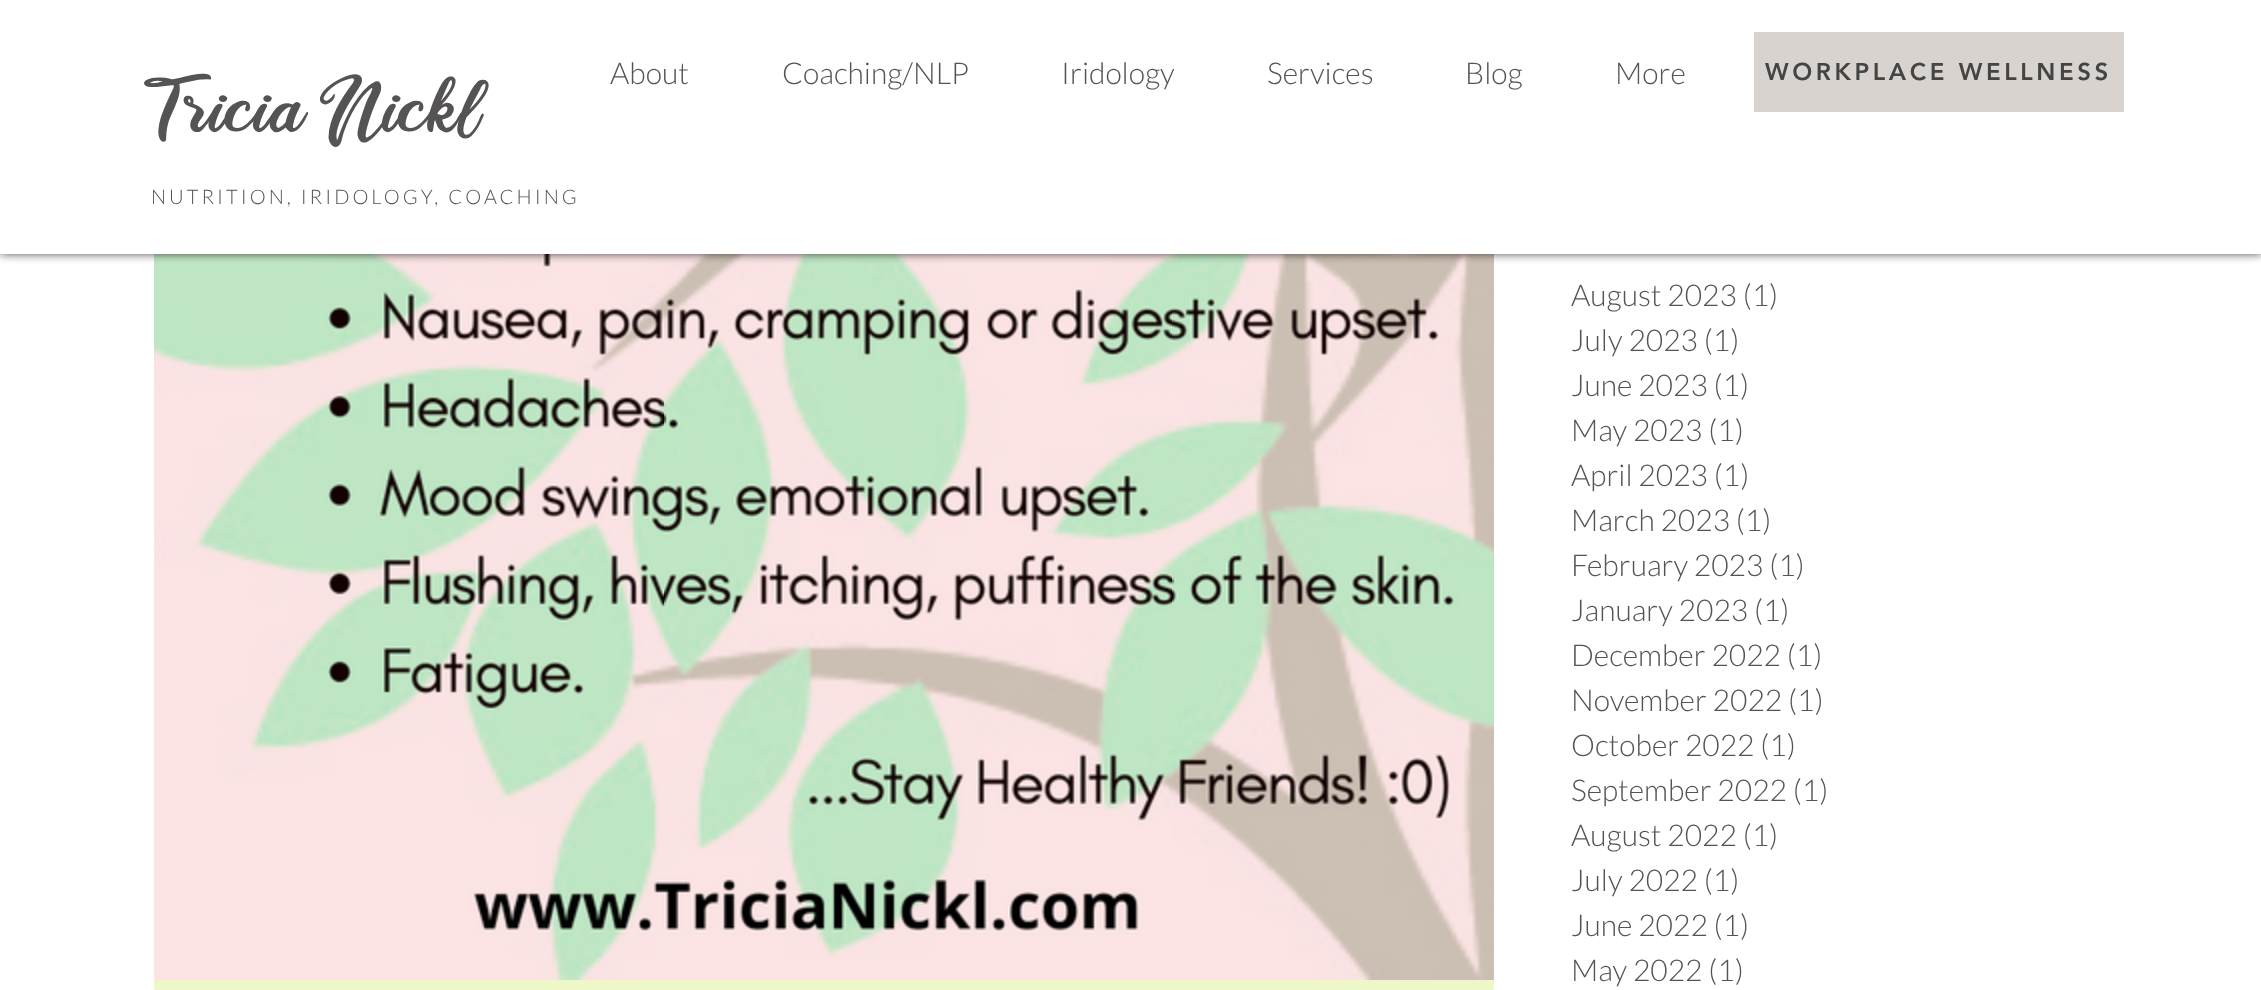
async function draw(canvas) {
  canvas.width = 2261;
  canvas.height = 990;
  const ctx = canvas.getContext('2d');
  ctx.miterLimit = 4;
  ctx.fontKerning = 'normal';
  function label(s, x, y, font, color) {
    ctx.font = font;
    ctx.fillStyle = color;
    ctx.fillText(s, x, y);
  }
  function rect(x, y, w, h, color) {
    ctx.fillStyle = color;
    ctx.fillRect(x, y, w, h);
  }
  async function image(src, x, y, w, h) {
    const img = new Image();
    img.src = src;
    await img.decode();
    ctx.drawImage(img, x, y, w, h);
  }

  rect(0, 0, 2261, 990, '#fff');
  await image('assets/img1.png', 154, 254, 1340, 726);
  ctx.fillStyle = '#000000b3';
  ctx.filter = 'blur(5px)';
  ctx.beginPath();
  ctx.rect(0, 0, 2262, 254);
  ctx.fill();
  ctx.filter = 'none';
  rect(0, 0, 2261, 254, '#fff');
  label('Tricia', 151, 132, 'italic 82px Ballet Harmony', '#555353');
  label('Nickl', 321, 132, 'italic 82px Ballet Harmony', '#555353');
  label('About', 610, 84, '300 30px Lato', '#555353');
  label('Coaching/NLP', 782, 84, '300 30px Lato', '#555353');
  label('Iridology', 1061, 84, '300 30px Lato', '#555353');
  label('Services', 1267, 84, '300 30px Lato', '#555353');
  label('Blog', 1465, 84, '300 30px Lato', '#555353');
  label('More', 1615, 84, '300 30px Lato', '#555353');
  rect(1754, 32, 370, 80, '#d8d3cf');
  ctx.letterSpacing = '3.6px';
  label('WORKPLACE WELLNESS', 1765, 80, '900 24px "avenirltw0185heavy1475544"', '#444');
  ctx.letterSpacing = '3px';
  label('NUTRITION, IRIDOLOGY, COACHING', 151, 204, '300 20px Lato', '#555353');
  rect(154, 980, 1340, 10, '#edf7c7');
  ctx.letterSpacing = '0px';
  label('August 2023 (1)', 1571, 306, '300 30px Lato', '#555353');
  label('July 2023 (1)', 1571, 351, '300 30px Lato', '#555353');
  label('June 2023 (1)', 1571, 396, '300 30px Lato', '#555353');
  label('May 2023 (1)', 1571, 441, '300 30px Lato', '#555353');
  label('April 2023 (1)', 1571, 486, '300 30px Lato', '#555353');
  label('March 2023 (1)', 1571, 531, '300 30px Lato', '#555353');
  label('February 2023 (1)', 1571, 576, '300 30px Lato', '#555353');
  label('January 2023 (1)', 1571, 621, '300 30px Lato', '#555353');
  label('December 2022 (1)', 1571, 666, '300 30px Lato', '#555353');
  label('November 2022 (1)', 1571, 711, '300 30px Lato', '#555353');
  label('October 2022 (1)', 1571, 756, '300 30px Lato', '#555353');
  label('September 2022 (1)', 1571, 801, '300 30px Lato', '#555353');
  label('August 2022 (1)', 1571, 846, '300 30px Lato', '#555353');
  label('July 2022 (1)', 1571, 891, '300 30px Lato', '#555353');
  label('June 2022 (1)', 1571, 936, '300 30px Lato', '#555353');
  label('May 2022 (1)', 1571, 981, '300 30px Lato', '#555353');
}

draw(document.querySelector('canvas'));
